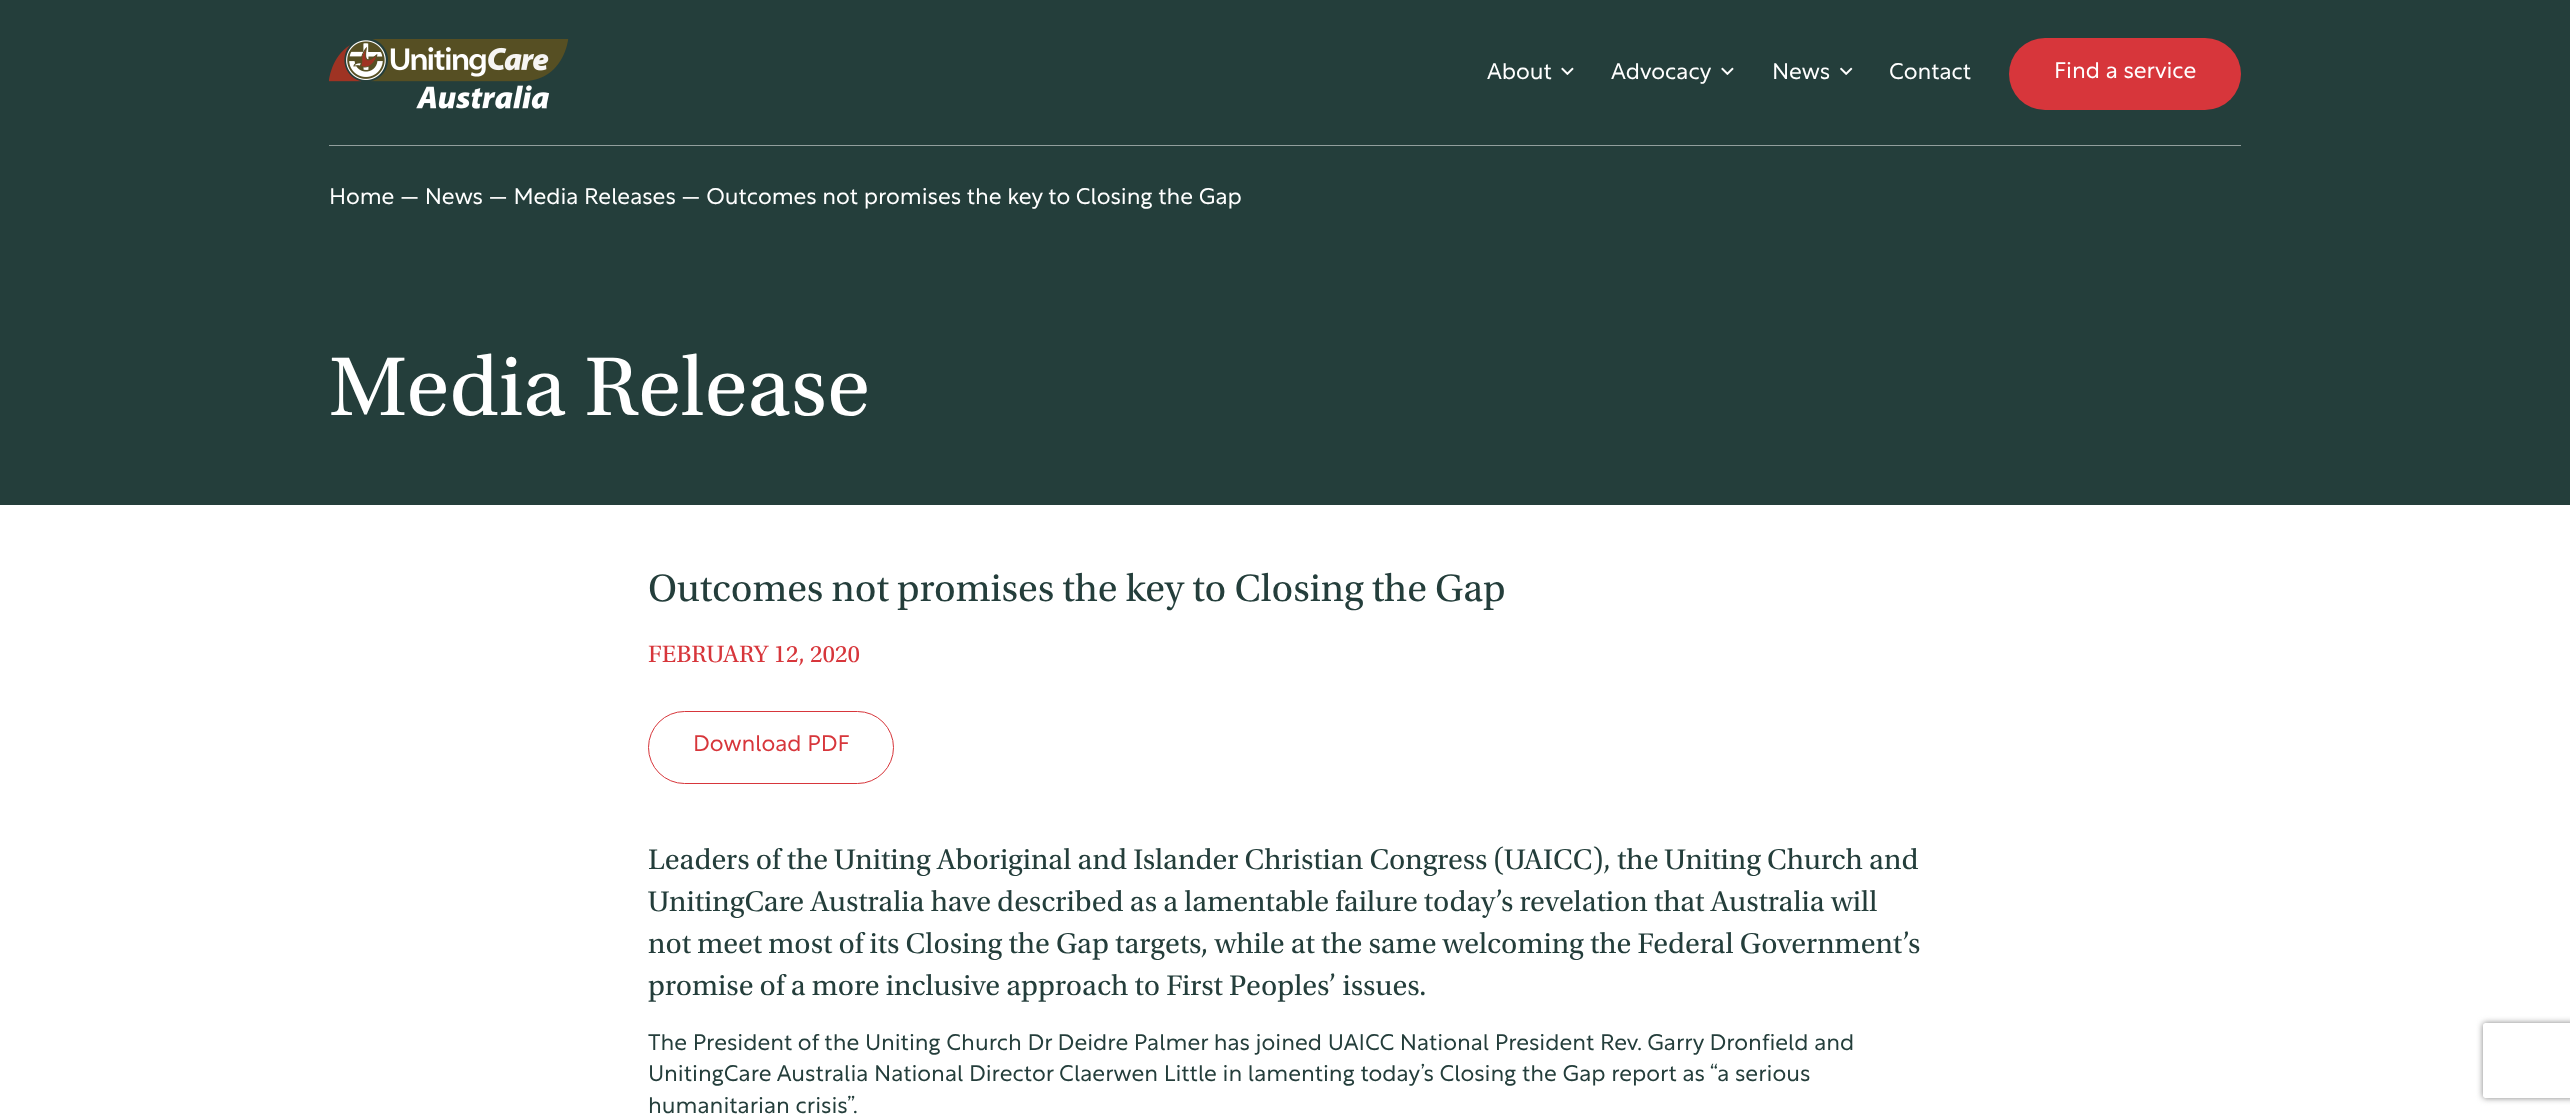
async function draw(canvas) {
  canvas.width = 2570;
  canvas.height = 1115;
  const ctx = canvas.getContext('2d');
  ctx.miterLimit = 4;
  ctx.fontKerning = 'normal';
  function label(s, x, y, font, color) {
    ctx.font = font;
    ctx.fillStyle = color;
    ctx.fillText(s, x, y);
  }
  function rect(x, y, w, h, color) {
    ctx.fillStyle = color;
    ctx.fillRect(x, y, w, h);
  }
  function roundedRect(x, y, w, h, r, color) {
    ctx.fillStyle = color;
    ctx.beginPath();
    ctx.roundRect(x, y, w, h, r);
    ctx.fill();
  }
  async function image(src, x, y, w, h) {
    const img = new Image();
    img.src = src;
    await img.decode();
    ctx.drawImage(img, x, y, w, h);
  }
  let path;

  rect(0, 0, 2570, 1115, '#fff');
  rect(0, 0, 2570, 505, '#243e3b');
  await image('assets/img1.png', 329, 39, 240, 70);
  label('About', 1487, 79, '300 22.5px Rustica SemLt', '#fff');
  await image('assets/img2.png', 1561, 67, 13, 8);
  label('Advocacy', 1611, 79, '300 22.5px Rustica SemLt', '#fff');
  await image('assets/img2.png', 1721, 67, 13, 8);
  label('News', 1772, 79, '300 22.5px Rustica SemLt', '#fff');
  await image('assets/img3.png', 1840, 67, 13, 8);
  label('Contact', 1889, 79, '300 22.5px Rustica SemLt', '#fff');
  roundedRect(2009, 38, 232, 72, 36, '#d7363b');
  label('Find a service', 2054, 78, '300 22.5px Rustica SemLt', '#fff');
  rect(329, 145, 1912, 1, '#929f9d');
  label('Home — News — Media Releases — Outcomes not promises the key to Closing the Gap', 329, 204, '300 22.5px Rustica SemLt', '#fff');
  label('Media Release', 329, 415, '87.5px Utopia', '#fff');
  label('Outcomes not promises the key to Closing the Gap', 648, 601, '40px Utopia', '#243e3b');
  label('FEBRUARY 12, 2020', 648, 662, '25px Utopia', '#d7363b');
  ctx.beginPath();
  ctx.roundRect(648.5, 711.5, 245, 72, 36);
  ctx.strokeStyle = '#d7363b';
  ctx.stroke();
  label('Download PDF', 693, 751, '300 22.5px Rustica SemLt', '#d7363b');
  label('Leaders of the Uniting Aboriginal and Islander Christian Congress (UAICC), the Uniting Church and', 648, 869, '30px Utopia', '#243e3b');
  label('UnitingCare Australia have described as a lamentable failure today’s revelation that Australia will', 648, 911, '30px Utopia', '#243e3b');
  label('not meet most of its Closing the Gap targets, while at the same welcoming the Federal Government’s', 648, 953, '30px Utopia', '#243e3b');
  label('promise of a more inclusive approach to First Peoples’ issues.', 648, 995, '30px Utopia', '#243e3b');
  label('The President of the Uniting Church Dr Deidre Palmer has joined UAICC National President Rev. Garry Dronfield and', 648, 1050, '300 22.5px Rustica SemLt', '#243e3b');
  label('UnitingCare Australia National Director Claerwen Little in lamenting today’s Closing the Gap report as “a serious', 648, 1081, '300 22.5px Rustica SemLt', '#243e3b');
  label('humanitarian crisis”.', 648, 1113, '300 22.5px Rustica SemLt', '#243e3b');
  ctx.save();
  path = new Path2D('M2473 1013H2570V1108H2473ZM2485.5 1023H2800.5C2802 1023 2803 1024 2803 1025.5V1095.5C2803 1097 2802 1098 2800.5 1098H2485.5C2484 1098 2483 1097 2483 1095.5V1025.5C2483 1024 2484 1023 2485.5 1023Z');
  ctx.clip(path, 'evenodd');
  ctx.fillStyle = '#808080';
  ctx.filter = 'blur(3px)';
  ctx.beginPath();
  ctx.roundRect(2483, 1023, 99, 75, 2.5);
  ctx.fill();
  ctx.filter = 'none';
  ctx.restore();
}

draw(document.querySelector('canvas'));
